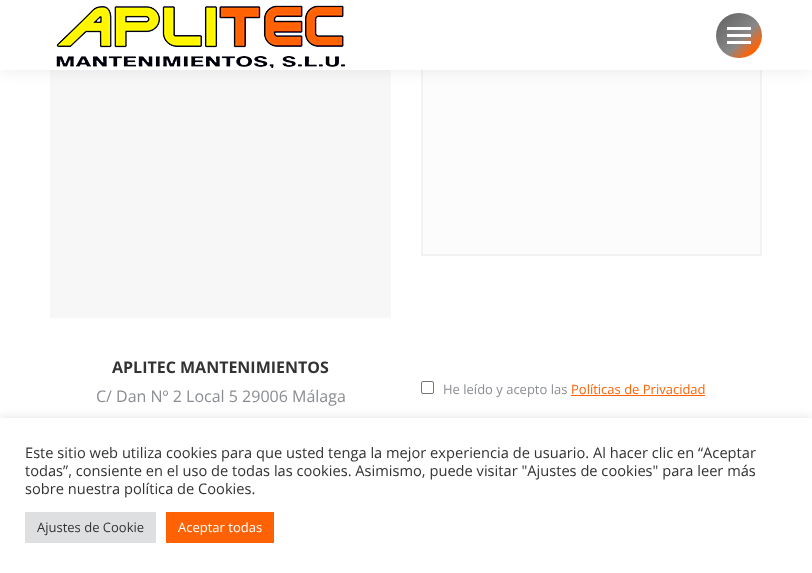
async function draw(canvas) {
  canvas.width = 812;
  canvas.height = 573;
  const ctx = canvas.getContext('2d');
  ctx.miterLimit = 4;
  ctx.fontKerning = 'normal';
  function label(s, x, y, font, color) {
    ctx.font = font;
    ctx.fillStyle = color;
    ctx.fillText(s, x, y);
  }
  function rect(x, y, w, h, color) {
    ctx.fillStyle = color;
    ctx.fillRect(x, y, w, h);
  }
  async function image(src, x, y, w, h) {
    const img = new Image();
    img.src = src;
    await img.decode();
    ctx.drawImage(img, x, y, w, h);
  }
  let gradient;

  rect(0, 0, 812, 573, '#fff');
  rect(50, 70, 341, 248, '#f7f7f7');
  rect(423, 70, 337, 184, '#fcfcfc');
  ctx.strokeStyle = '#f2f2f2';
  ctx.lineWidth = 2;
  ctx.strokeRect(422, 9, 339, 246);
  ctx.fillStyle = '#00000012';
  ctx.filter = 'blur(7.5px)';
  ctx.beginPath();
  ctx.rect(-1, -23, 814, 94);
  ctx.fill();
  ctx.filter = 'none';
  rect(0, 0, 812, 70, '#fff');
  await image('assets/img1.png', 56, 5, 289, 63);
  gradient = ctx.createLinearGradient(716, 13, 762, 58);
  gradient.addColorStop(0, '#606060');
  gradient.addColorStop(0.57, '#888');
  gradient.addColorStop(0.82, '#ff6205');
  ctx.fillStyle = gradient;
  ctx.beginPath();
  ctx.roundRect(716, 13, 46, 45, 22.5);
  ctx.fill();
  rect(727, 27, 24, 3, '#fff');
  rect(727, 34, 24, 3, '#fff');
  rect(727, 41, 24, 3, '#fff');
  label('APLITEC MANTENIMIENTOS', 112, 373, 'bold 16px Open Sans', '#333');
  label('C/ Dan Nº 2 Local 5 29006 Málaga', 96, 402, '16px Open Sans', '#8b8d94');
  ctx.beginPath();
  ctx.roundRect(421.5, 381.5, 12, 12, 1.5);
  ctx.strokeStyle = '#767676';
  ctx.lineWidth = 1;
  ctx.stroke();
  label('He leído y acepto las', 443, 394, '13px Open Sans', '#8b8d94');
  label('Políticas de Privacidad', 571, 394, '13px Open Sans', '#ff6205');
  rect(571, 395, 134, 1, '#ff6205');
  ctx.fillStyle = '#acabab4d';
  ctx.filter = 'blur(5px)';
  ctx.beginPath();
  ctx.rect(0, 417, 812, 155);
  ctx.fill();
  ctx.filter = 'none';
  rect(0, 418, 812, 155, '#fff');
  label('Este sitio web utiliza cookies para que usted tenga la mejor experiencia de usuario. Al hacer clic en “Aceptar', 25, 458, '14.65px Open Sans', '#333');
  label('todas”, consiente en el uso de todas las cookies. Asimismo, puede visitar "Ajustes de cookies" para leer más', 25, 476, '14.65px Open Sans', '#333');
  label('sobre nuestra política de Cookies.', 25, 494, '14.65px Open Sans', '#333');
  rect(25, 512, 131, 31, '#dedfe0');
  label('Ajustes de Cookie', 37, 532, '13px Open Sans', '#333');
  rect(166, 512, 108, 31, '#ff6205');
  label('Aceptar todas', 178, 532, '13px Open Sans', '#fff');
}

draw(document.querySelector('canvas'));
